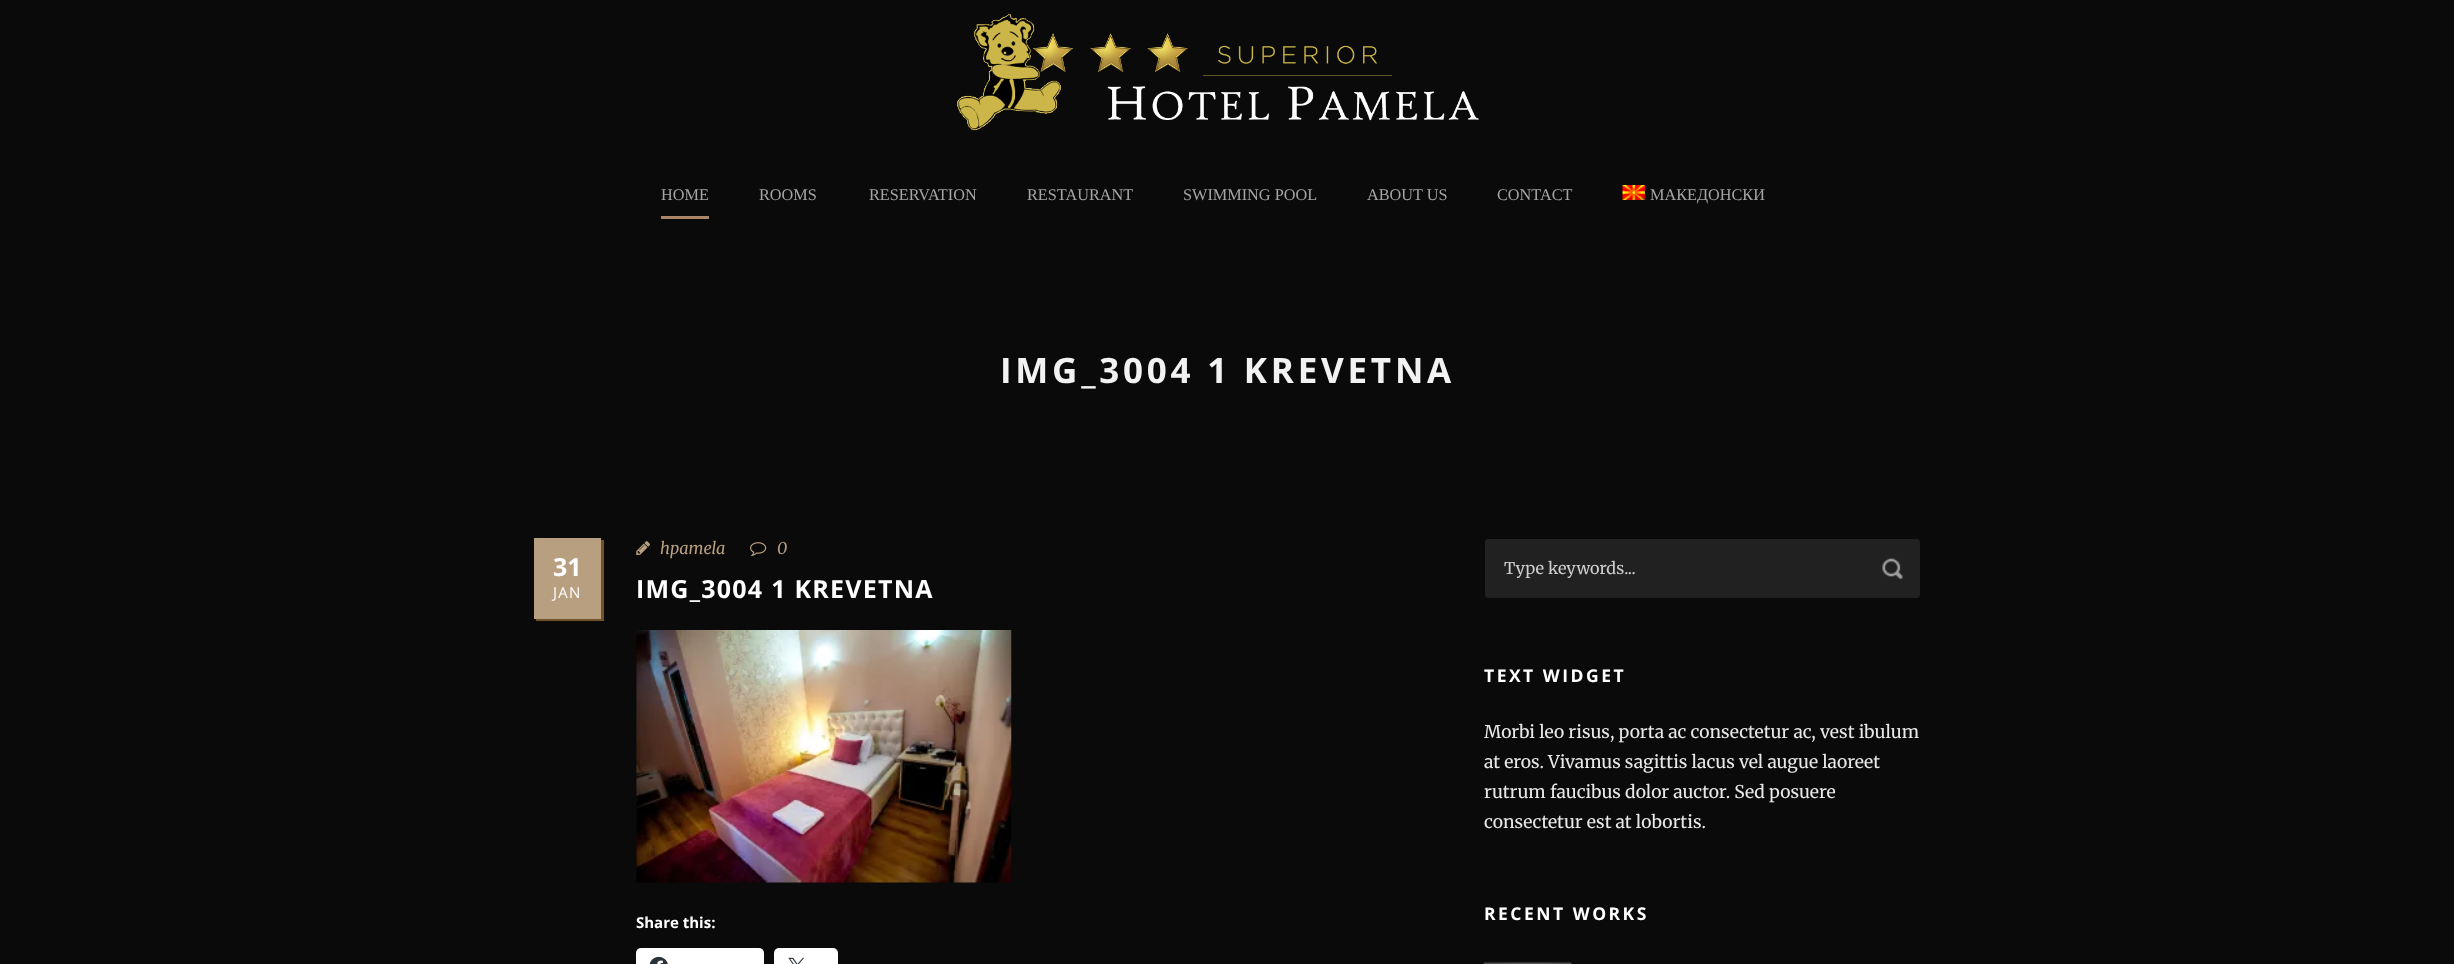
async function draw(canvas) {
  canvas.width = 2454;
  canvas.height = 964;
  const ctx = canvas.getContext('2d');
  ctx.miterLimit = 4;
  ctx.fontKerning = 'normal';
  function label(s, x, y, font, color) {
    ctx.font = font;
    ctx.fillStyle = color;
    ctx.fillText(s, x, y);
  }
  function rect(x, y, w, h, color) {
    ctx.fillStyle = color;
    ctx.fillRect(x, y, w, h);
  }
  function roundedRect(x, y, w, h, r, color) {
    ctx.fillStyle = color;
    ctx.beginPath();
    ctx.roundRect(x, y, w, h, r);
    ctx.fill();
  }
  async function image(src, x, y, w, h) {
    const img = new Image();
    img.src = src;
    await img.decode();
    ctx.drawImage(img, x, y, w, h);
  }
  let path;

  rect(0, 0, 2454, 964, '#0a0a0a');
  await image('assets/img1.png', 957, 13, 522, 118);
  label('HOME', 661, 200, '16.25px Liberation Serif', '#a5a5a5');
  label('ROOMS', 759, 200, '16.25px Liberation Serif', '#a5a5a5');
  label('RESERVATION', 869, 200, '16.25px Liberation Serif', '#a5a5a5');
  label('RESTAURANT', 1027, 200, '16.25px Liberation Serif', '#a5a5a5');
  label('SWIMMING POOL', 1183, 200, '16.25px Liberation Serif', '#a5a5a5');
  label('ABOUT US', 1367, 200, '16.25px Liberation Serif', '#a5a5a5');
  label('CONTACT', 1497, 200, '16.25px Liberation Serif', '#a5a5a5');
  await image('assets/img2.png', 1622, 185, 23, 15);
  label('МАКЕДОНСКИ', 1650, 200, '16.25px Liberation Serif', '#a5a5a5');
  rect(661, 216, 48, 3, '#aa8667');
  ctx.letterSpacing = '3.75px';
  label('IMG_3004 1 KREVETNA', 1000, 383, 'bold 35px Open Sans', '#f2f2f2');
  ctx.fillStyle = '#725229';
  path = new Path2D('M536 619V621H604V540H601V619Z');
  ctx.fill(path);
  rect(534, 538, 67, 81, '#b89f80');
  ctx.letterSpacing = '0px';
  label('31', 553, 576, 'bold 25px Open Sans', '#fff');
  ctx.letterSpacing = '1.25px';
  label('JAN', 553, 598, '15px Open Sans', '#fff');
  await image('assets/img3.png', 636, 541, 14, 14);
  ctx.letterSpacing = '0px';
  label('hpamela', 660, 554, 'italic 16.25px Merriweather', '#b89f80');
  await image('assets/img4.png', 750, 542, 17, 15);
  label('0', 777, 554, 'italic 16.25px Merriweather', '#b89f80');
  ctx.letterSpacing = '1.25px';
  label('IMG_3004 1 KREVETNA', 636, 598, 'bold 25px Open Sans', '#fff');
  await image('assets/img5.png', 636, 630, 376, 253);
  ctx.letterSpacing = '0px';
  label('Share this:', 636, 928, 'bold 15px Open Sans', '#fff');
  roundedRect(636, 948, 128, 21, 5, '#fff');
  await image('assets/img6.png', 649, 956, 19, 8);
  roundedRect(774, 948, 64, 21, 5, '#fff');
  await image('assets/img7.png', 788, 957, 17, 7);
  ctx.fillStyle = '#212121';
  ctx.beginPath();
  ctx.roundRect(1484.5, 538.5, 436, 60, 3.5);
  ctx.fill();
  ctx.strokeStyle = '#0a0a0a';
  ctx.stroke();
  label('Type keywords...', 1504, 574, '16.25px Merriweather', '#cecece');
  await image('assets/img8.png', 1882, 558, 21, 21);
  ctx.letterSpacing = '2.5px';
  label('TEXT WIDGET', 1484, 682, 'bold 17.5px Open Sans', '#fff');
  ctx.letterSpacing = '0px';
  label('Morbi leo risus, porta ac consectetur ac, vest ibulum', 1484, 738, '17.5px Merriweather', '#e8e8e8');
  label('at eros. Vivamus sagittis lacus vel augue laoreet', 1484, 768, '17.5px Merriweather', '#e8e8e8');
  label('rutrum faucibus dolor auctor. Sed posuere', 1484, 798, '17.5px Merriweather', '#e8e8e8');
  label('consectetur est at lobortis.', 1484, 828, '17.5px Merriweather', '#e8e8e8');
  ctx.letterSpacing = '2.5px';
  label('RECENT WORKS', 1484, 920, 'bold 17.5px Open Sans', '#fff');
  await image('assets/img9.png', 1483, 962, 89, 2);
}

draw(document.querySelector('canvas'));
